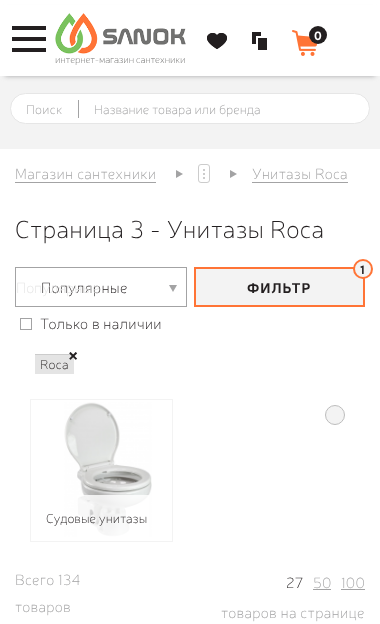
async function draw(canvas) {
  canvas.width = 380;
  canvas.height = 624;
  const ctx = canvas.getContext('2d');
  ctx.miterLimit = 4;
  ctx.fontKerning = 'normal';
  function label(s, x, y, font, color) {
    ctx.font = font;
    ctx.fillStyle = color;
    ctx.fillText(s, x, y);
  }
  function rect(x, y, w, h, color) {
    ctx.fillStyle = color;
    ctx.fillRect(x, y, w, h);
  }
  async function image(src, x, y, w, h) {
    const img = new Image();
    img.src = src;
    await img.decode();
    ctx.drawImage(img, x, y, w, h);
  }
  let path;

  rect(0, 0, 380, 624, '#fff');
  rect(0, 76, 380, 73, '#f3f3f3');
  ctx.fillStyle = '#a3a3a4';
  ctx.filter = 'blur(2.5px)';
  ctx.beginPath();
  ctx.rect(5, 10, 370, 66);
  ctx.fill();
  ctx.filter = 'none';
  rect(0, 5, 380, 71, '#fff');
  rect(12, 26, 34, 4, '#231f20');
  rect(12, 37, 34, 4, '#231f20');
  rect(12, 48, 34, 4, '#231f20');
  await image('assets/img1.png', 207, 33, 20, 16);
  await image('assets/img2.png', 252, 32, 15, 18);
  await image('assets/img3.png', 292, 30, 26, 26);
  ctx.beginPath();
  ctx.arc(318, 35, 9, 0, 2 * Math.PI);
  ctx.fill();
  ctx.letterSpacing = '1px';
  label('0', 314, 40, 'bold 12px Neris', '#fff');
  await image('assets/img4.png', 55, 13, 131, 41);
  ctx.letterSpacing = '-0.15px';
  label('интернет-магазин сантехники', 55, 63, '100 10px Neris', '#727271');
  ctx.fillStyle = '#fff';
  ctx.beginPath();
  ctx.roundRect(10.5, 93.5, 359, 30, 15);
  ctx.fill();
  ctx.strokeStyle = '#e6e6e6';
  ctx.stroke();
  ctx.letterSpacing = '0.3px';
  label('Поиск', 26, 114, '100 13px Neris', '#a3a3a4');
  rect(78, 100, 1, 18, '#a3a3a4');
  ctx.letterSpacing = '0px';
  label('Название товара или бренда', 94, 114, '100 13px Neris', '#a3a3a4');
  rect(15, 182, 141, 1, '#a3a3a4');
  ctx.letterSpacing = '0.3px';
  label('Магазин сантехники', 15, 179, '100 15px Neris', '#a3a3a4');
  path = new Path2D('M176 178V170L183 174ZM230 178V170L237 174Z');
  ctx.fill(path);
  ctx.beginPath();
  ctx.roundRect(198.5, 164.5, 11, 18, 2.5);
  ctx.strokeStyle = '#ccc';
  ctx.stroke();
  rect(203, 169, 2, 2, '#ccc');
  rect(203, 177, 2, 2, '#ccc');
  rect(203, 173, 2, 2, '#ccc');
  rect(252, 182, 96, 1, '#a3a3a4');
  label('Унитазы Roca', 252, 179, '100 15px Neris', '#a3a3a4');
  label('Страница 3 - Унитазы Roca', 15, 238, '100 25px Neris', '#231f20');
  ctx.strokeStyle = '#a3a3a4';
  ctx.strokeRect(15.5, 267.5, 171, 39);
  label('Популярные', 41, 293, '100 15px Neris', '#231f20');
  ctx.letterSpacing = '0px';
  label('Популярные', 16, 293, '100 15px Neris', '#e5e5e5');
  ctx.fillStyle = '#a3a3a4';
  path = new Path2D('M169 285H177L173 292Z');
  ctx.fill(path);
  ctx.strokeRect(20.5, 318.5, 11, 11);
  ctx.letterSpacing = '0.3px';
  label('Только в наличии', 40, 329, '100 15px Neris', '#231f20');
  ctx.fillStyle = '#f3f3f3';
  ctx.beginPath();
  ctx.rect(195, 268, 169, 38);
  ctx.fill();
  ctx.strokeStyle = '#ff7436';
  ctx.lineWidth = 2;
  ctx.stroke();
  ctx.beginPath();
  ctx.arc(363, 269, 9, 0, 2 * Math.PI);
  ctx.fill();
  ctx.stroke();
  ctx.letterSpacing = '1px';
  label('1', 360, 274, 'bold 12px Neris', '#231f20');
  label('ФИЛЬТР', 247, 293, 'bold 14px Neris', '#231f20');
  rect(35, 355, 39, 19, '#e4e4e4');
  rect(35, 354, 39, 1, '#ccc');
  ctx.letterSpacing = '0.3px';
  label('×', 68, 360, 'bold 16px Neris', '#231f20');
  label('Roca', 40, 369, '100 13px Neris', '#231f20');
  ctx.fillStyle = '#f3f3f3';
  ctx.beginPath();
  ctx.arc(335, 415, 9.5, 0, 2 * Math.PI);
  ctx.fill();
  ctx.strokeStyle = '#bdbdbd';
  ctx.lineWidth = 1;
  ctx.stroke();
  ctx.strokeStyle = '#f3f3f3';
  ctx.strokeRect(30.5, 399.5, 142, 142);
  await image('assets/img5.png', 64, 402, 88, 135);
  rect(77, 495, 72, 42, '#ffffffcc');
  ctx.letterSpacing = '0px';
  label('Судовые унитазы', 46, 523, '100 13px Neris', '#231f20');
  ctx.letterSpacing = '0.3px';
  label('Всего 134', 15, 585, '100 15px Neris', '#a3a3a4');
  label('товаров', 15, 612, '100 15px Neris', '#a3a3a4');
  label('27', 286, 588, '100 15px Neris', '#231f20');
  label('50', 313, 588, '100 15px Neris', '#a3a3a4');
  rect(313, 589, 18, 1, '#a3a3a4');
  label('100', 341, 588, '100 15px Neris', '#a3a3a4');
  rect(341, 589, 24, 1, '#a3a3a4');
  label('товаров на странице', 221, 618, '100 15px Neris', '#a3a3a4');
}

draw(document.querySelector('canvas'));
